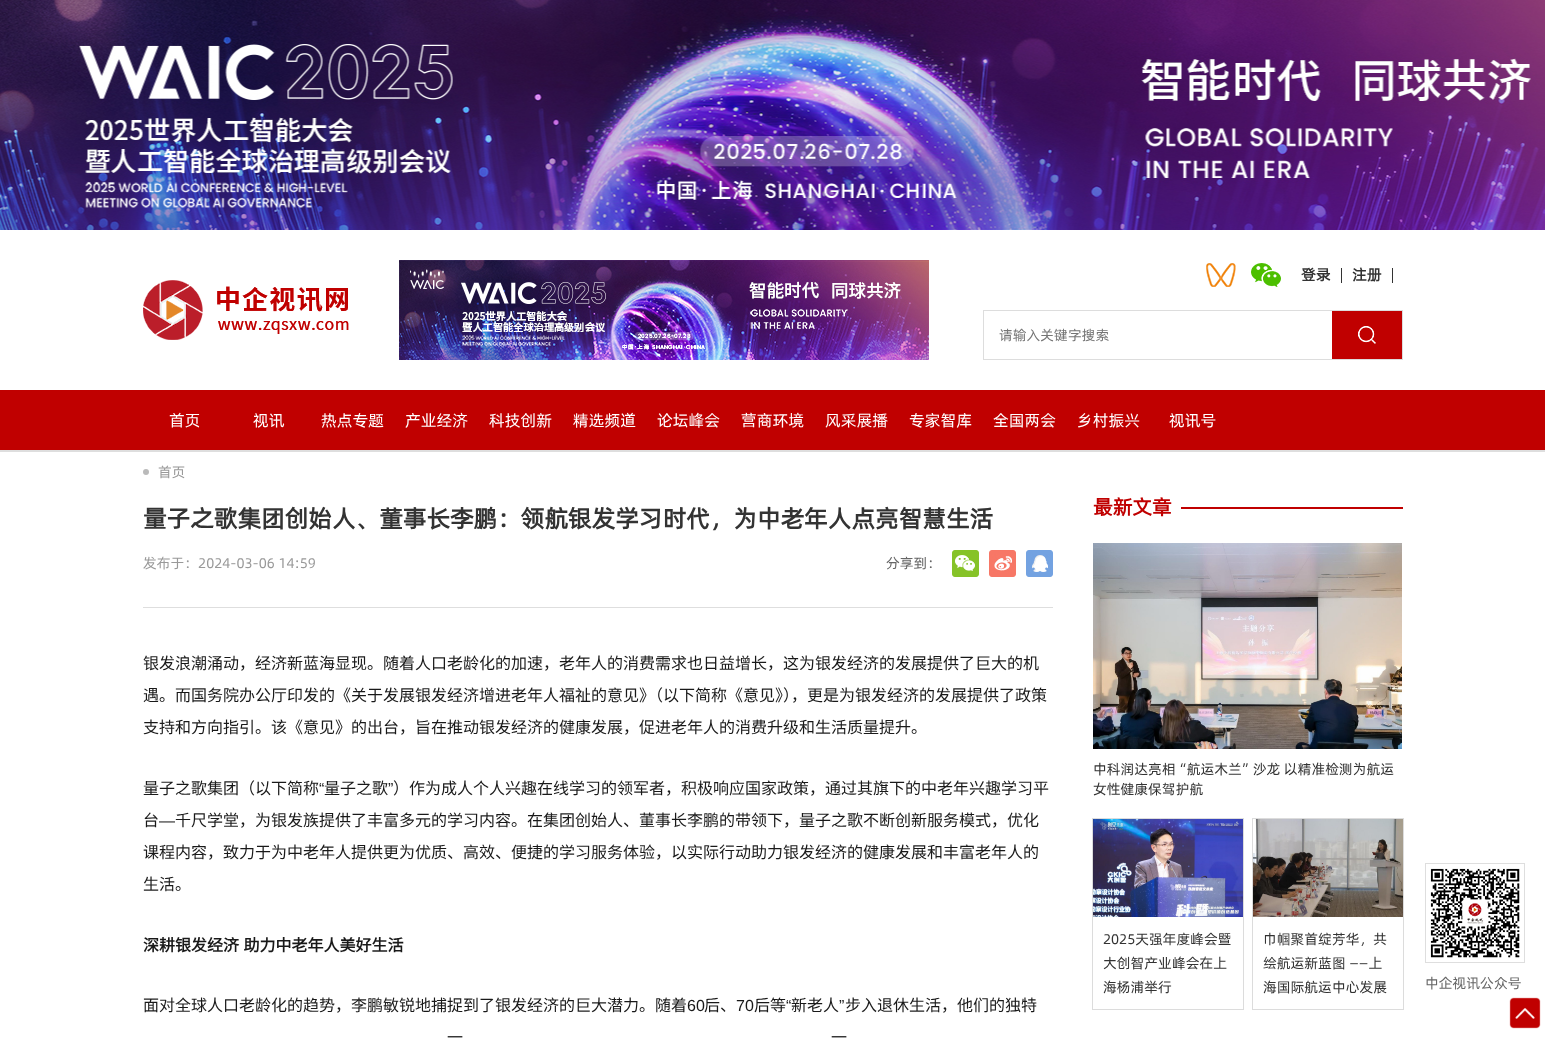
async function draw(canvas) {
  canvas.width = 1545;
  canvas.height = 1038;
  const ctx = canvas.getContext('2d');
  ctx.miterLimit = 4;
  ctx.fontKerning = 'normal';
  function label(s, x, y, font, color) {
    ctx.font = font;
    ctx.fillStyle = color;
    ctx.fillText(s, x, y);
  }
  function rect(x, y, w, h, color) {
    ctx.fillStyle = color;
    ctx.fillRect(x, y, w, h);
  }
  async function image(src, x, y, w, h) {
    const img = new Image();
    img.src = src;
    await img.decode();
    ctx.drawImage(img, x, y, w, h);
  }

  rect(0, 0, 1545, 1038, '#fff');
  await image('assets/img1.png', 0, 0, 1545, 230);
  await image('assets/img2.png', 143, 280, 206, 60);
  await image('assets/img3.png', 399, 260, 530, 100);
  await image('assets/img4.png', 1206, 263, 30, 24);
  await image('assets/img5.png', 1251, 263, 30, 24);
  label('登录', 1301, 280, 'bold 15px "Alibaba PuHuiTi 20"', '#333');
  rect(1341, 268, 1, 15, '#333');
  label('注册', 1352, 280, 'bold 15px "Alibaba PuHuiTi 20"', '#333');
  rect(1392, 268, 1, 15, '#333');
  ctx.strokeStyle = '#ddd';
  ctx.strokeRect(983.5, 310.5, 419, 49);
  label('请输入关键字搜索', 999, 340, '14px "Alibaba PuHuiTi 20"', '#757575');
  rect(1332, 311, 70, 48, '#c00000');
  await image('assets/img6.png', 1358, 326, 18, 18);
  rect(0, 390, 1545, 60, '#c00000');
  label('首页', 169, 426, '16px "Alibaba PuHuiTi 20"', '#fff');
  label('视讯', 253, 426, '16px "Alibaba PuHuiTi 20"', '#fff');
  label('热点专题', 321, 426, '16px "Alibaba PuHuiTi 20"', '#fff');
  label('产业经济', 405, 426, '16px "Alibaba PuHuiTi 20"', '#fff');
  label('科技创新', 489, 426, '16px "Alibaba PuHuiTi 20"', '#fff');
  label('精选频道', 573, 426, '16px "Alibaba PuHuiTi 20"', '#fff');
  label('论坛峰会', 657, 426, '16px "Alibaba PuHuiTi 20"', '#fff');
  label('营商环境', 741, 426, '16px "Alibaba PuHuiTi 20"', '#fff');
  label('风采展播', 825, 426, '16px "Alibaba PuHuiTi 20"', '#fff');
  label('专家智库', 909, 426, '16px "Alibaba PuHuiTi 20"', '#fff');
  label('全国两会', 993, 426, '16px "Alibaba PuHuiTi 20"', '#fff');
  label('乡村振兴', 1077, 426, '16px "Alibaba PuHuiTi 20"', '#fff');
  label('视讯号', 1169, 426, '16px "Alibaba PuHuiTi 20"', '#fff');
  rect(0, 450, 1545, 2, '#dedede');
  ctx.fillStyle = '#bababa';
  ctx.beginPath();
  ctx.arc(146, 472, 3, 0, 2 * Math.PI);
  ctx.fill();
  label('首页', 158, 477, '14px "Alibaba PuHuiTi 20"', '#999');
  rect(143, 607, 910, 1, '#dedede');
  label('量子之歌集团创始人、董事长李鹏：领航银发学习时代，为中老年人点亮智慧生活', 143, 527, 'bold 24px "Alibaba PuHuiTi 20"', '#333');
  label('发布于：2024-03-06 14:59', 143, 568, '14px "Alibaba PuHuiTi 20"', '#999');
  label('分享到：', 886, 568, '14px "Alibaba PuHuiTi 20"', '#666');
  await image('assets/img7.png', 952, 550, 27, 27);
  await image('assets/img8.png', 989, 550, 27, 27);
  await image('assets/img9.png', 1026, 550, 27, 27);
  label('银发浪潮涌动，经济新蓝海显现。随着人口老龄化的加速，老年人的消费需求也日益增长，这为银发经济的发展提供了巨大的机', 143, 669, '16px Noto Sans CJK SC', '#191919');
  label('遇。而国务院办公厅印发的《关于发展银发经济增进老年人福祉的意见》（以下简称《意见》），更是为银发经济的发展提供了政策', 143, 701, '16px Noto Sans CJK SC', '#191919');
  label('支持和方向指引。该《意见》的出台，旨在推动银发经济的健康发展，促进老年人的消费升级和生活质量提升。', 143, 733, '16px Noto Sans CJK SC', '#191919');
  label('量子之歌集团（以下简称', 143, 794, '16px Noto Sans CJK SC', '#191919');
  label('“', 319, 794, '16px Liberation Sans', '#191919');
  label('量子之歌', 324, 794, '16px Noto Sans CJK SC', '#191919');
  label('”', 388, 794, '16px Liberation Sans', '#191919');
  label('）作为成人个人兴趣在线学习的领军者，积极响应国家政策，通过其旗下的中老年兴趣学习平', 393, 794, '16px Noto Sans CJK SC', '#191919');
  label('台', 143, 826, '16px Noto Sans CJK SC', '#191919');
  label('—', 159, 826, '16px Liberation Sans', '#191919');
  label('千尺学堂，为银发族提供了丰富多元的学习内容。在集团创始人、董事长李鹏的带领下，量子之歌不断创新服务模式，优化', 175, 826, '16px Noto Sans CJK SC', '#191919');
  label('课程内容，致力于为中老年人提供更为优质、高效、便捷的学习服务体验，以实际行动助力银发经济的健康发展和丰富老年人的', 143, 858, '16px Noto Sans CJK SC', '#191919');
  label('生活。', 143, 890, '16px Noto Sans CJK SC', '#191919');
  ctx.wordSpacing = '1px';
  label('深耕银发经济 助力中老年人美好生活', 143, 951, 'bold 16px Noto Sans CJK SC', '#191919');
  ctx.wordSpacing = '0px';
  label('面对全球人口老龄化的趋势，李鹏敏锐地捕捉到了银发经济的巨大潜力。随着', 143, 1011, '16px Noto Sans CJK SC', '#191919');
  label('60', 687, 1011, '16px Liberation Sans', '#191919');
  label('后、', 704, 1011, '16px Noto Sans CJK SC', '#191919');
  label('70', 736, 1011, '16px Liberation Sans', '#191919');
  label('后等', 754, 1011, '16px Noto Sans CJK SC', '#191919');
  label('“', 786, 1011, '16px Liberation Sans', '#191919');
  label('新老人', 791, 1011, '16px Noto Sans CJK SC', '#191919');
  label('”', 839, 1011, '16px Liberation Sans', '#191919');
  label('步入退休生活，他们的独特', 845, 1011, '16px Noto Sans CJK SC', '#191919');
  label('一', 447, 1043, '16px Noto Sans CJK SC', '#191919');
  label('一', 831, 1043, '16px Noto Sans CJK SC', '#191919');
  label('最新文章', 1093, 514, 'bold 20px "Alibaba PuHuiTi 20"', '#c00000');
  rect(1181, 507, 222, 2, '#c00000');
  await image('assets/img10.png', 1093, 543, 309, 206);
  label('中科润达亮相“航运木兰”沙龙 以精准检测为航运', 1093, 774, '14px "Alibaba PuHuiTi 20"', '#333');
  label('女性健康保驾护航', 1093, 794, '14px "Alibaba PuHuiTi 20"', '#333');
  ctx.strokeStyle = '#dcdcdc';
  ctx.strokeRect(1092.5, 818.5, 151, 191);
  await image('assets/img11.png', 1093, 819, 150, 98);
  label('2025天强年度峰会暨', 1103, 944, '14px "Alibaba PuHuiTi 20"', '#333');
  label('大创智产业峰会在上', 1103, 968, '14px "Alibaba PuHuiTi 20"', '#333');
  label('海杨浦举行', 1103, 992, '14px "Alibaba PuHuiTi 20"', '#333');
  ctx.strokeRect(1252.5, 818.5, 151, 191);
  await image('assets/img12.png', 1253, 819, 150, 98);
  label('巾帼聚首绽芳华，共', 1263, 944, '14px "Alibaba PuHuiTi 20"', '#333');
  label('绘航运新蓝图 ——上', 1263, 968, '14px "Alibaba PuHuiTi 20"', '#333');
  label('海国际航运中心发展', 1263, 992, '14px "Alibaba PuHuiTi 20"', '#333');
  ctx.strokeStyle = '#dedede';
  ctx.strokeRect(1425.5, 863.5, 99, 99);
  await image('assets/img13.png', 1430, 868, 90, 90);
  label('中企视讯公众号', 1425, 988, '14px "Alibaba PuHuiTi 20"', '#666');
  await image('assets/img14.png', 1509, 997, 32, 32);
}

draw(document.querySelector('canvas'));
